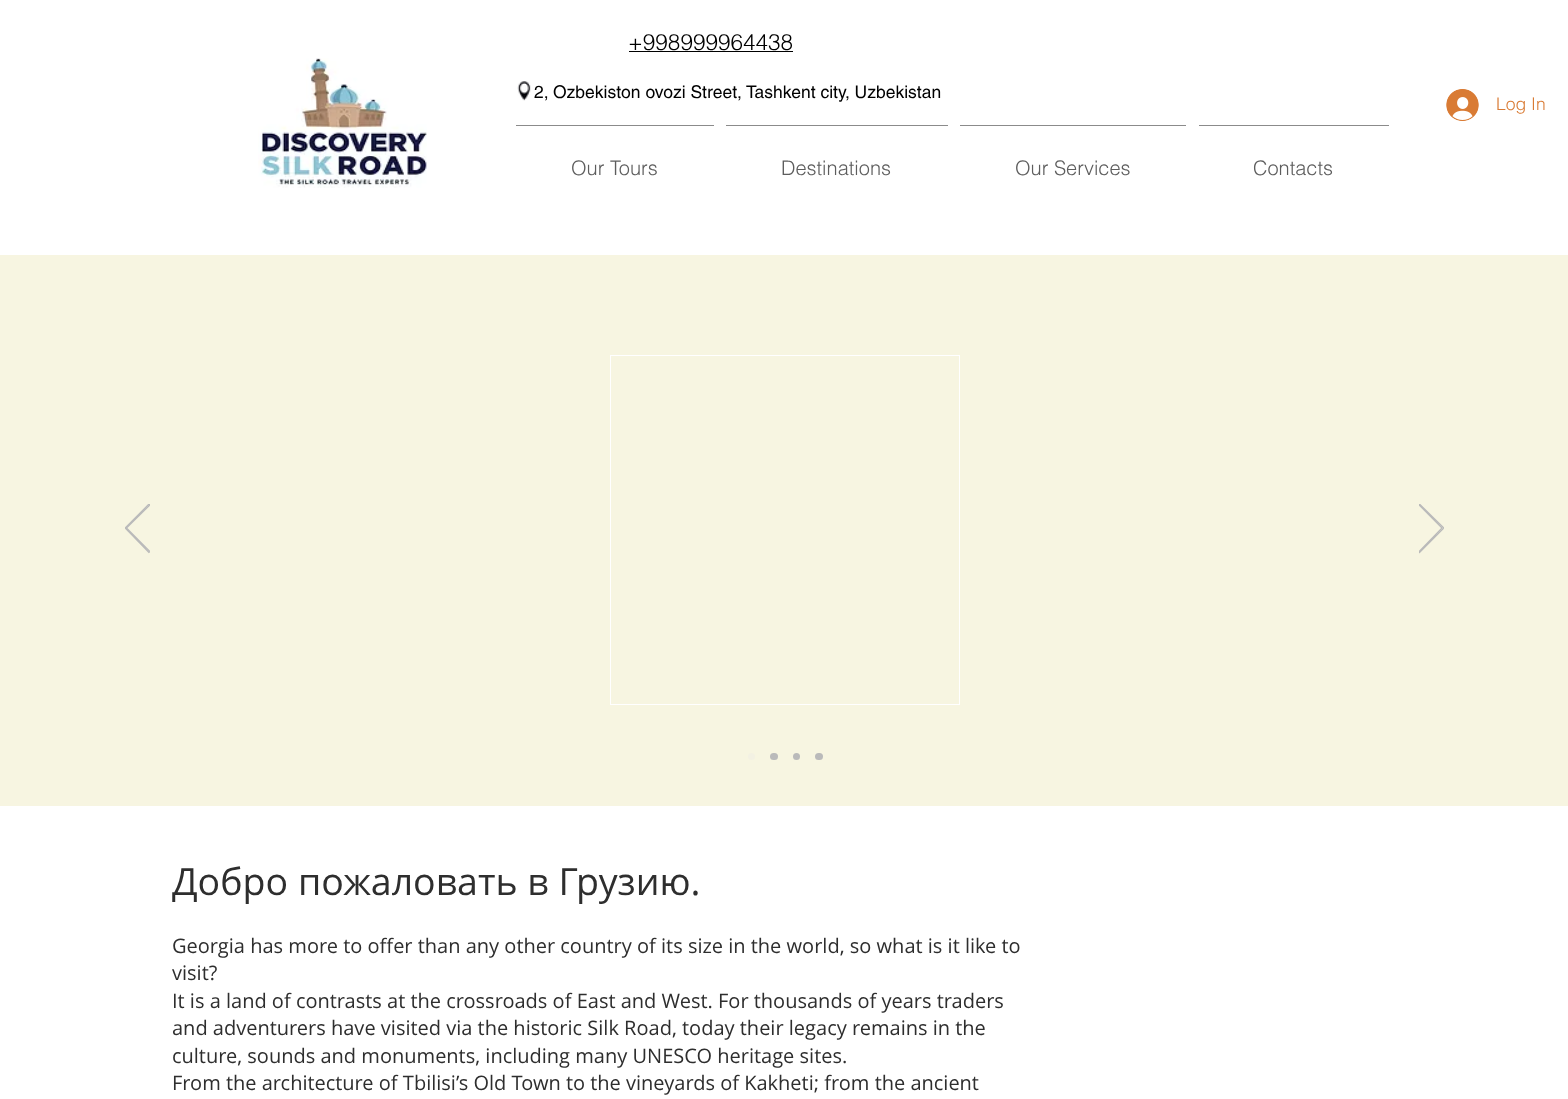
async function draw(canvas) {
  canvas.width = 1568;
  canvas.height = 1099;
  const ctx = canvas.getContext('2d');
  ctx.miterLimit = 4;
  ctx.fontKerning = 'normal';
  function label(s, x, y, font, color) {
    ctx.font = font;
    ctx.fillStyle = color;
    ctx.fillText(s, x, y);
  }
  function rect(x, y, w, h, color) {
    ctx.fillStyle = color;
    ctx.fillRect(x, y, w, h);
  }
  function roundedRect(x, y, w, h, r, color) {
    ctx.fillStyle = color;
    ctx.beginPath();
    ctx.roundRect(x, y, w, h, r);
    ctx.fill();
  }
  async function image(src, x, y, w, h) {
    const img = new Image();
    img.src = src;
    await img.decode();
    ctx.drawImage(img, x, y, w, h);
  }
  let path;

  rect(0, 0, 1568, 1099, '#fff');
  label('+998999964438', 628, 50, '300 22.5px helvetica', '#000');
  rect(629, 51, 164, 1, '#000');
  await image('assets/img1.png', 258, 58, 169, 130);
  await image('assets/img2.png', 517, 81, 14, 20);
  label('2,', 534, 98, '17.5px helvetica', '#000');
  label('Ozbekiston ovozi Street,', 553, 98, '17.5px helvetica', '#000');
  label('Tashkent city, Uzbekistan', 746, 98, '17.5px helvetica', '#000');
  await image('assets/img3.png', 1446, 89, 33, 32);
  label('Log In', 1496, 110, '300 17.5px helvetica', '#d97b34');
  rect(516, 125, 198, 1, '#8b8b8b');
  label('Our Tours', 571, 175, '300 20px helvetica', '#5d5d5d');
  rect(726, 125, 222, 1, '#8b8b8b');
  label('Destinations', 781, 175, '300 20px helvetica', '#5d5d5d');
  rect(960, 125, 226, 1, '#8b8b8b');
  label('Our Services', 1015, 175, '300 20px helvetica', '#5d5d5d');
  rect(1199, 125, 190, 1, '#8b8b8b');
  label('Contacts', 1253, 175, '300 20px helvetica', '#5d5d5d');
  rect(0, 255, 1568, 551, '#f7f5e1');
  ctx.strokeStyle = '#fff';
  ctx.strokeRect(610.5, 355.5, 349, 349);
  ctx.save();
  ctx.beginPath();
  ctx.rect(125, 504, 25, 50);
  ctx.clip();
  path = new Path2D('M149 552.5L125 528L149 504L150 505L126.5 528L150 551.5Z');
  ctx.strokeStyle = '#bababa';
  ctx.lineWidth = 1.2;
  ctx.stroke(path);
  ctx.restore();
  ctx.save();
  ctx.beginPath();
  ctx.rect(1419, 504, 25, 50);
  ctx.clip();
  path = new Path2D('M1419.5 552.5L1444 528L1419.5 504L1419 505L1442 528L1419 551.5Z');
  ctx.strokeStyle = '#bababa';
  ctx.lineWidth = 1.2;
  ctx.stroke(path);
  ctx.restore();
  ctx.fillStyle = '#f3f1e3';
  ctx.beginPath();
  ctx.arc(751.5, 756.5, 3.5, 0, 2 * Math.PI);
  ctx.fill();
  roundedRect(770, 753, 8, 7, 3.5, '#bababa');
  ctx.beginPath();
  ctx.arc(796.5, 756.5, 3.5, 0, 2 * Math.PI);
  ctx.fill();
  roundedRect(815, 753, 8, 7, 3.5, '#bababa');
  label('Добро пожаловать в Грузию.', 172, 895, '37.5px Open Sans', '#2e2e2e');
  label('Georgia has more to offer than any other country of its size in the world, so what is it like to', 172, 953, '20px Open Sans', '#2e2e2e');
  label('visit?', 172, 980, '20px Open Sans', '#2e2e2e');
  label('It is a land of contrasts at the crossroads of East and West. For thousands of years traders', 172, 1008, '20px Open Sans', '#2e2e2e');
  label('and adventurers have visited via the historic Silk Road, today their legacy remains in the', 172, 1035, '20px Open Sans', '#2e2e2e');
  label('culture, sounds and monuments, including many UNESCO heritage sites.', 172, 1063, '20px Open Sans', '#2e2e2e');
  label('From the architecture of Tbilisi’s Old Town to the vineyards of Kakheti; from the ancient', 172, 1090, '20px Open Sans', '#2e2e2e');
}

draw(document.querySelector('canvas'));
